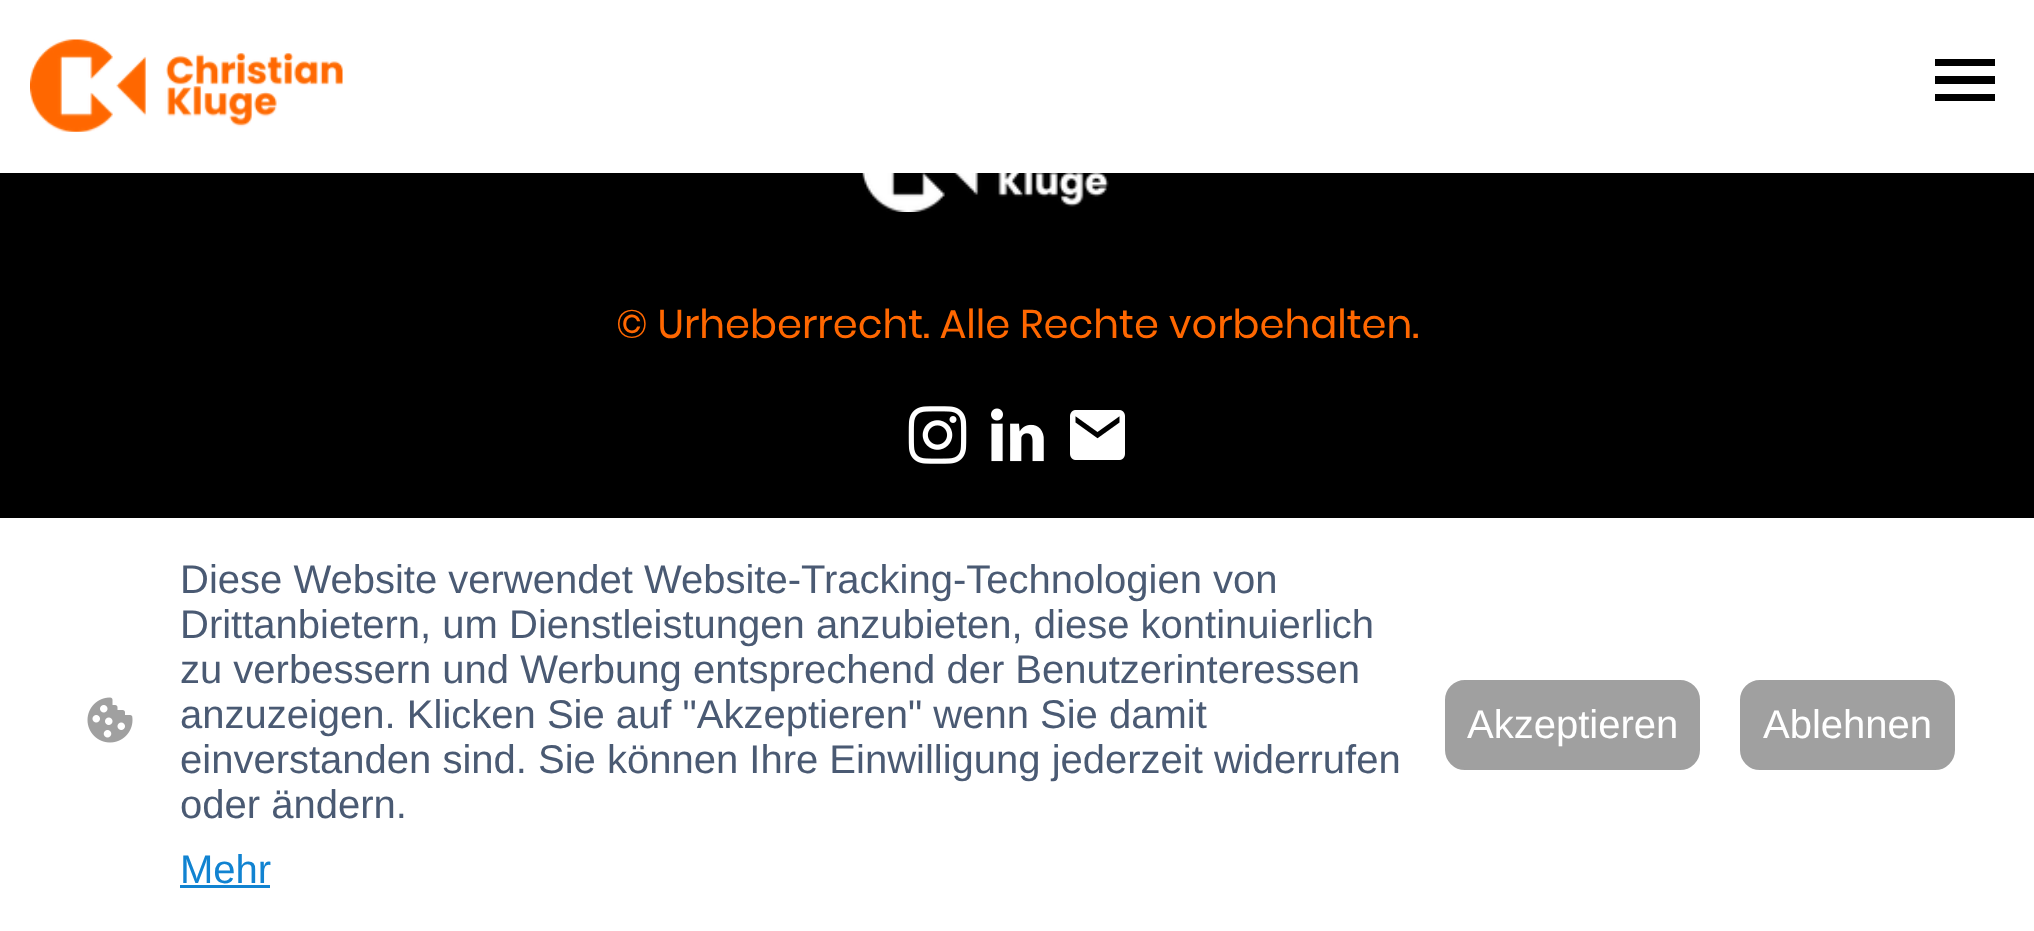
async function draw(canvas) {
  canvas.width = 2034;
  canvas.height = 931;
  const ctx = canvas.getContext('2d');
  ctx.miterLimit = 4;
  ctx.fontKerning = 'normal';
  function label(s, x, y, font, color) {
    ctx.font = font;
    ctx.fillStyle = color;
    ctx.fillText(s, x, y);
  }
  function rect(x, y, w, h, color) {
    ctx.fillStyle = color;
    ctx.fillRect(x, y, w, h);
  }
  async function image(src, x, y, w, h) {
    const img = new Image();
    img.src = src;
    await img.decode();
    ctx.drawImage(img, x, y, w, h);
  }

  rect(0, 0, 2034, 931, '#000');
  rect(0, 0, 2034, 173, '#fff');
  await image('assets/img1.png', 30, 39, 313, 93);
  rect(1935, 59, 60, 7, '#000');
  rect(1935, 76, 60, 8, '#000');
  rect(1935, 94, 60, 7, '#000');
  await image('assets/img2.png', 862, 173, 247, 39);
  label('© Urheberrecht. Alle Rechte vorbehalten.', 616, 338, '40px Poppins', '#ff6700');
  await image('assets/img3.png', 908, 406, 59, 58);
  await image('assets/img4.png', 991, 408, 53, 54);
  await image('assets/img5.png', 1070, 410, 55, 50);
  rect(0, 518, 2034, 413, '#fff');
  await image('assets/img6.png', 87, 697, 46, 46);
  label('Diese Website verwendet Website-Tracking-Technologien von', 180, 593, '40px Liberation Sans', '#4a5a73');
  label('Drittanbietern, um Dienstleistungen anzubieten, diese kontinuierlich', 180, 638, '40px Liberation Sans', '#4a5a73');
  label('zu verbessern und Werbung entsprechend der Benutzerinteressen', 180, 683, '40px Liberation Sans', '#4a5a73');
  label('anzuzeigen. Klicken Sie auf "Akzeptieren" wenn Sie damit', 180, 728, '40px Liberation Sans', '#4a5a73');
  label('einverstanden sind. Sie können Ihre Einwilligung jederzeit widerrufen', 180, 773, '40px Liberation Sans', '#4a5a73');
  label('oder ändern.', 180, 818, '40px Liberation Sans', '#4a5a73');
  label('Mehr', 180, 883, '40px Liberation Sans', '#1183d1');
  rect(180, 885, 90, 3, '#1183d1');
  ctx.fillStyle = '#a0a0a0';
  ctx.beginPath();
  ctx.roundRect(1446.5, 681.5, 252, 87, 18.5);
  ctx.fill();
  ctx.strokeStyle = '#a0a0a0';
  ctx.lineWidth = 3;
  ctx.stroke();
  label('Akzeptieren', 1467, 738, '40px Liberation Sans', '#fff');
  ctx.fillStyle = '#a0a0a0';
  ctx.beginPath();
  ctx.roundRect(1741.5, 681.5, 212, 87, 18.5);
  ctx.fill();
  ctx.stroke();
  label('Ablehnen', 1763, 738, '40px Liberation Sans', '#fff');
}

draw(document.querySelector('canvas'));
